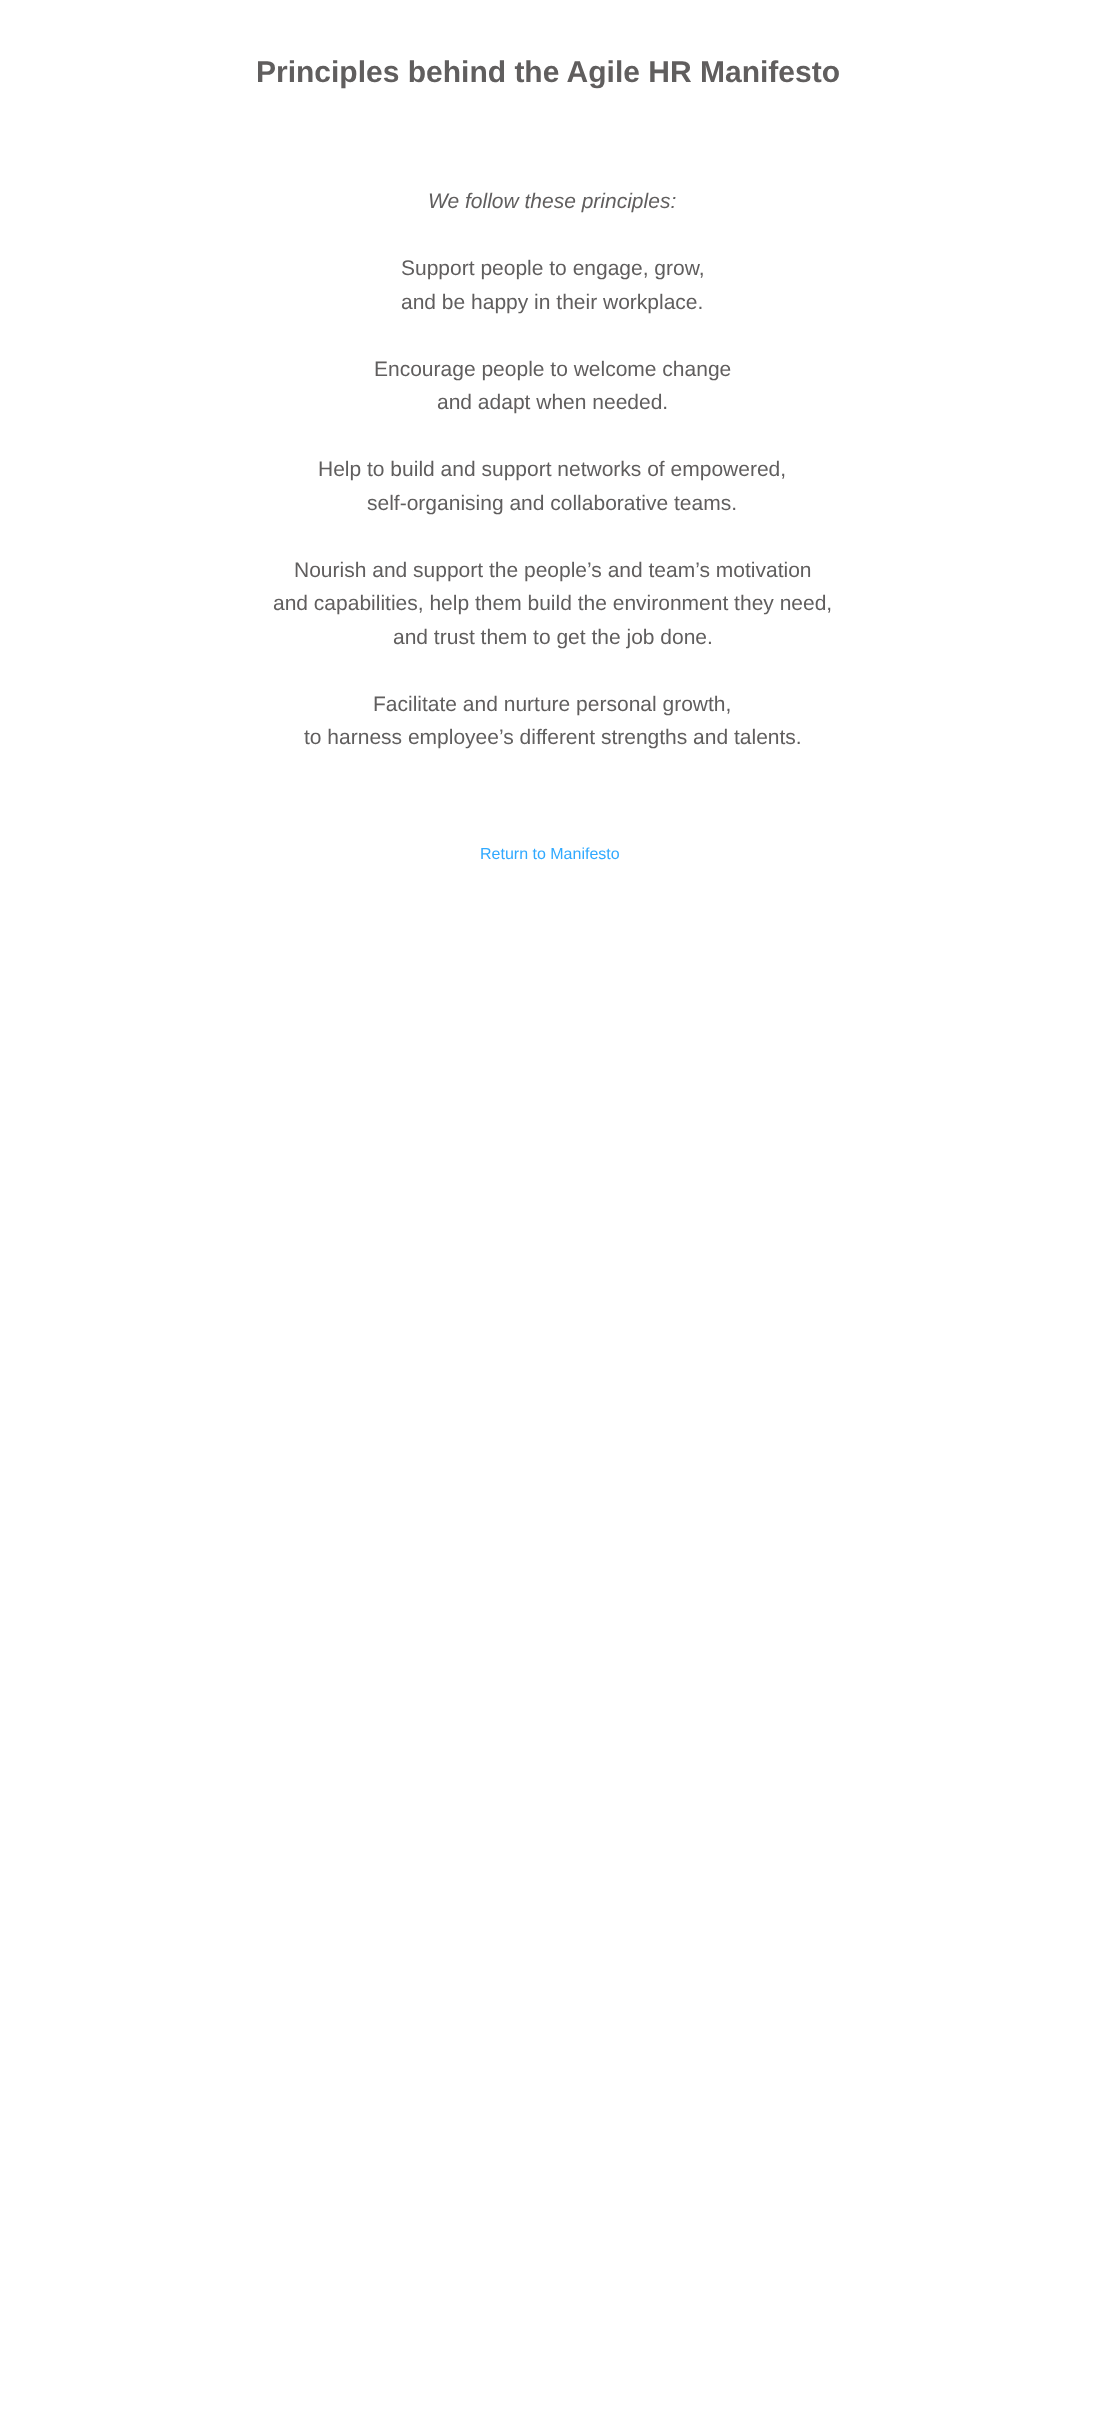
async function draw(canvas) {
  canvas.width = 1106;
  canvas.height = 2421;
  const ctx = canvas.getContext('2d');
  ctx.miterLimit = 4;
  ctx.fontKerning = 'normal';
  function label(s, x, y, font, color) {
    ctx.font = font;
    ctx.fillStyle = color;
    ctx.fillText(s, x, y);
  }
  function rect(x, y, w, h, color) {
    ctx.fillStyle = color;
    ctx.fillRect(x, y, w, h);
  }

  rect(0, 0, 1106, 2421, '#fff');
  label('Principles behind the Agile HR Manifesto', 256, 82, 'bold 30px Liberation Sans', '#605e5e');
  label('We follow these principles:', 428, 208, 'italic 21px Liberation Sans', '#605e5e');
  label('Support people to engage, grow,', 401, 275, '21px Liberation Sans', '#605e5e');
  label('and be happy in their workplace.', 401, 309, '21px Liberation Sans', '#605e5e');
  label('Encourage people to welcome change', 374, 376, '21px Liberation Sans', '#605e5e');
  label('and adapt when needed.', 437, 409, '21px Liberation Sans', '#605e5e');
  label('Help to build and support networks of empowered,', 318, 476, '21px Liberation Sans', '#605e5e');
  label('self-organising and collaborative teams.', 367, 510, '21px Liberation Sans', '#605e5e');
  label('Nourish and support the people’s and team’s motivation', 294, 577, '21px Liberation Sans', '#605e5e');
  label('and capabilities, help them build the environment they need,', 273, 610, '21px Liberation Sans', '#605e5e');
  label('and trust them to get the job done.', 393, 644, '21px Liberation Sans', '#605e5e');
  label('Facilitate and nurture personal growth,', 373, 711, '21px Liberation Sans', '#605e5e');
  label('to harness employee’s different strengths and talents.', 304, 744, '21px Liberation Sans', '#605e5e');
  label('Return to Manifesto', 480, 859, '16px Liberation Sans', '#30a9ff');
}

draw(document.querySelector('canvas'));
